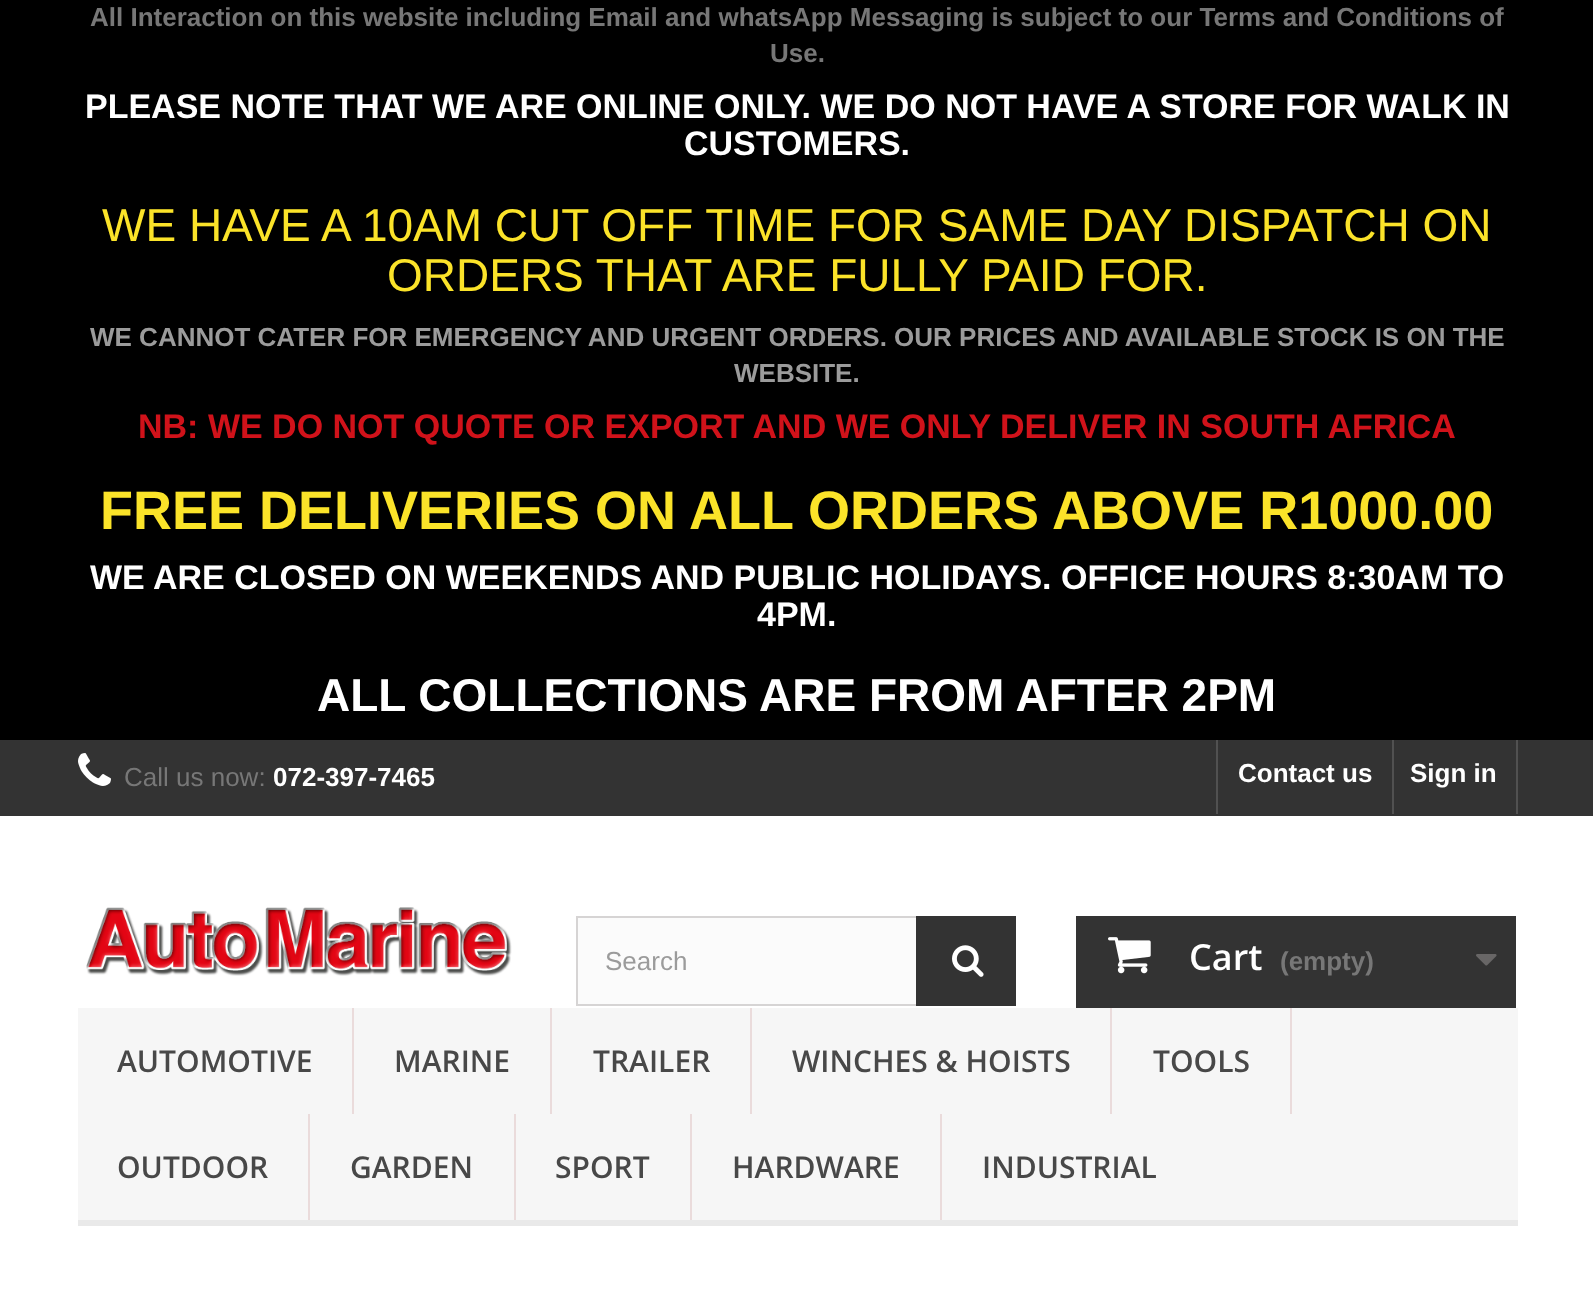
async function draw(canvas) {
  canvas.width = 1593;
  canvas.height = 1293;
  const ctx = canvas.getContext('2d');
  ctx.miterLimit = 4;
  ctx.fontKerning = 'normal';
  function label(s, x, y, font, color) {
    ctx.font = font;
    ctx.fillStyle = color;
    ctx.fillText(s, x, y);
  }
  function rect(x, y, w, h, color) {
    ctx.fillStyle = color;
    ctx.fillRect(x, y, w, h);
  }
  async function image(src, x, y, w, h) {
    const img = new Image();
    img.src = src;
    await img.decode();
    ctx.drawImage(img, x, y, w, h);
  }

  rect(0, 0, 1593, 1293, '#fff');
  rect(0, 0, 1593, 740, '#000');
  label('All Interaction on this website including Email and whatsApp Messaging is subject to our Terms and Conditions of', 90, 26, 'bold 26px Liberation Sans', '#777');
  label('Use.', 770, 62, 'bold 26px Liberation Sans', '#777');
  label('PLEASE NOTE THAT WE ARE ONLINE ONLY. WE DO NOT HAVE A STORE FOR WALK IN', 85, 118, 'bold 34px Liberation Sans', '#fff');
  label('CUSTOMERS.', 684, 155, 'bold 34px Liberation Sans', '#fff');
  label('WE HAVE A 10AM CUT OFF TIME FOR SAME DAY DISPATCH ON', 102, 241, '46px Liberation Sans', '#fbe329');
  label('ORDERS THAT ARE FULLY PAID FOR.', 387, 291, '46px Liberation Sans', '#fbe329');
  label('WE CANNOT CATER FOR EMERGENCY AND URGENT ORDERS. OUR PRICES AND AVAILABLE STOCK IS ON THE', 90, 346, 'bold 26px Liberation Sans', '#9b9b9b');
  label('WEBSITE.', 734, 382, 'bold 26px Liberation Sans', '#9b9b9b');
  label('NB: WE DO NOT QUOTE OR EXPORT AND WE ONLY DELIVER IN SOUTH AFRICA', 138, 438, 'bold 34px Liberation Sans', '#d0121a');
  label('FREE DELIVERIES ON ALL ORDERS ABOVE R1000.00', 100, 529, 'bold 54px Liberation Sans', '#fbe329');
  label('WE ARE CLOSED ON WEEKENDS AND PUBLIC HOLIDAYS. OFFICE HOURS 8:30AM TO', 90, 589, 'bold 34px Liberation Sans', '#fff');
  label('4PM.', 757, 626, 'bold 34px Liberation Sans', '#fff');
  label('ALL COLLECTIONS ARE FROM AFTER 2PM', 317, 711, 'bold 46px Liberation Sans', '#fff');
  rect(0, 740, 1593, 76, '#333');
  await image('assets/img1.png', 78, 753, 33, 33);
  label('Call us now:', 124, 786, '26px Liberation Sans', '#777');
  label('072-397-7465', 273, 786, 'bold 26px Liberation Sans', '#fff');
  rect(1216, 740, 2, 74, '#515151');
  label('Contact us', 1238, 782, 'bold 26px Liberation Sans', '#fff');
  rect(1516, 740, 2, 74, '#515151');
  rect(1392, 740, 2, 74, '#515151');
  label('Sign in', 1410, 782, 'bold 26px Liberation Sans', '#fff');
  await image('assets/img2.png', 86, 907, 426, 69);
  rect(578, 918, 338, 86, '#fbfbfb');
  ctx.strokeStyle = '#d6d4d4';
  ctx.lineWidth = 2;
  ctx.strokeRect(577, 917, 438, 88);
  label('Search', 605, 970, '26px Liberation Sans', '#9b9b9b');
  rect(916, 916, 100, 90, '#333');
  await image('assets/img3.png', 952, 945, 32, 32);
  rect(1076, 916, 440, 92, '#333');
  await image('assets/img4.png', 1108, 937, 43, 37);
  label('Cart', 1189, 970, '600 36px Open Sans', '#fff');
  label('(empty)', 1280, 970, 'bold 26px Liberation Sans', '#777');
  await image('assets/img5.png', 1476, 954, 21, 12);
  rect(78, 1008, 1440, 212, '#f6f6f6');
  rect(78, 1220, 1440, 6, '#e9e9e9');
  rect(352, 1008, 2, 106, '#eadbdb');
  label('AUTOMOTIVE', 117, 1072, '600 30px Open Sans', '#484848');
  rect(550, 1008, 2, 106, '#eadbdb');
  label('MARINE', 394, 1072, '600 30px Open Sans', '#484848');
  rect(750, 1008, 2, 106, '#eadbdb');
  label('TRAILER', 593, 1072, '600 30px Open Sans', '#484848');
  rect(1110, 1008, 2, 106, '#eadbdb');
  label('WINCHES & HOISTS', 792, 1072, '600 30px Open Sans', '#484848');
  rect(1290, 1008, 2, 106, '#eadbdb');
  label('TOOLS', 1153, 1072, '600 30px Open Sans', '#484848');
  rect(308, 1114, 2, 106, '#eadbdb');
  label('OUTDOOR', 117, 1178, '600 30px Open Sans', '#484848');
  rect(514, 1114, 2, 106, '#eadbdb');
  label('GARDEN', 350, 1178, '600 30px Open Sans', '#484848');
  rect(690, 1114, 2, 106, '#eadbdb');
  label('SPORT', 555, 1178, '600 30px Open Sans', '#484848');
  rect(940, 1114, 2, 106, '#eadbdb');
  label('HARDWARE', 732, 1178, '600 30px Open Sans', '#484848');
  label('INDUSTRIAL', 982, 1178, '600 30px Open Sans', '#484848');
}

draw(document.querySelector('canvas'));
